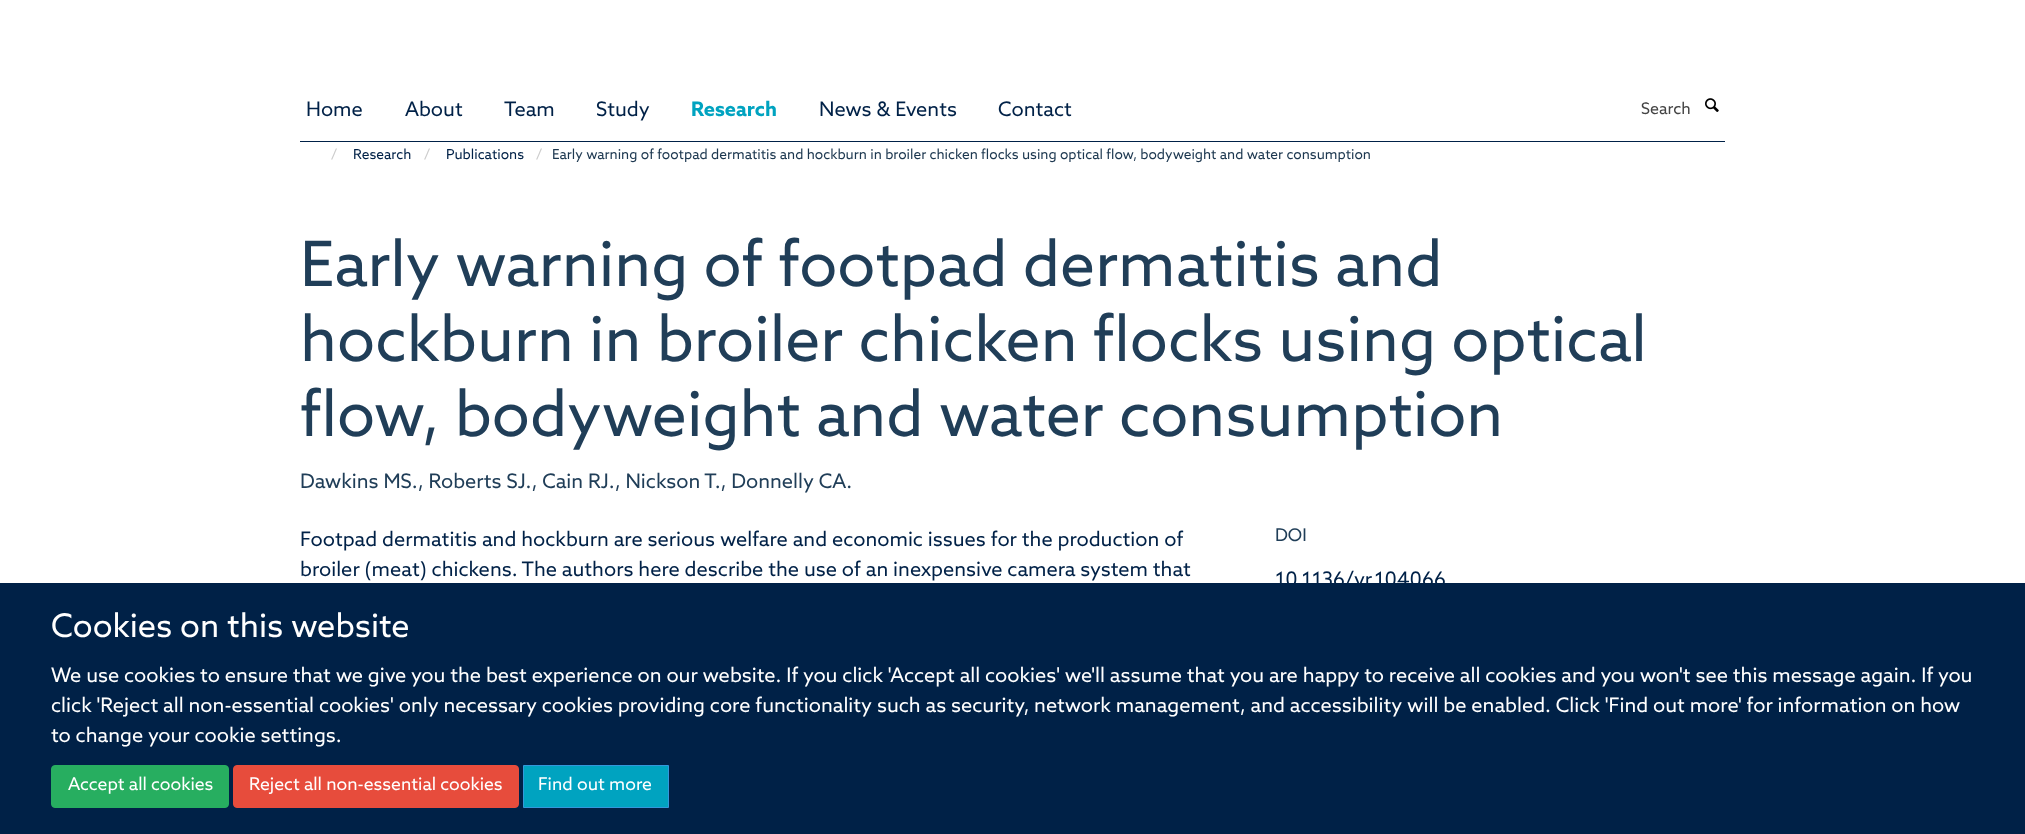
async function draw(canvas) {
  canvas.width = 2025;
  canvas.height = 834;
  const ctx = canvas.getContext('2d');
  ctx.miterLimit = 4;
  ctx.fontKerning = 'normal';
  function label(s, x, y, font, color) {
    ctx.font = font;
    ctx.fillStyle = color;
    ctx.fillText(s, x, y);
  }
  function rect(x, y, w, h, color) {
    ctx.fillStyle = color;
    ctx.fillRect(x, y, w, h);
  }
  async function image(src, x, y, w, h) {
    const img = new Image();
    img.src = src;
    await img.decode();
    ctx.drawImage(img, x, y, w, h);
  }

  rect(0, 0, 2025, 834, '#fff');
  rect(300, 141, 1425, 1, '#002147');
  label('Home', 306, 116, '20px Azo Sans', '#002147');
  label('About', 405, 116, '20px Azo Sans', '#002147');
  label('Team', 504, 116, '20px Azo Sans', '#002147');
  label('Study', 596, 116, '20px Azo Sans', '#002147');
  label('Research', 691, 116, 'bold 20px Azo Sans', '#00a3c0');
  label('News & Events', 819, 116, '20px Azo Sans', '#002147');
  label('Contact', 998, 116, '20px Azo Sans', '#002147');
  label('Search', 1641, 114, '16px Azo Sans', '#444');
  await image('assets/img1.png', 1705, 98, 14, 14);
  label('/', 331, 159, '13.75px Azo Sans', '#ccc');
  label('Research', 353, 159, '13.75px Azo Sans', '#002147');
  label('/', 424, 159, '13.75px Azo Sans', '#ccc');
  label('Publications', 446, 159, '13.75px Azo Sans', '#002147');
  label('/', 536, 159, '13.75px Azo Sans', '#ccc');
  label('Early warning of footpad dermatitis and hockburn in broiler chicken flocks using optical flow, bodyweight and water consumption', 552, 159, '13.75px Azo Sans', '#1d3850');
  label('Early warning of footpad dermatitis and', 300, 286, '62.5px Azo Sans', '#203e58');
  label('hockburn in broiler chicken flocks using optical', 300, 361, '62.5px Azo Sans', '#203e58');
  label('flow, bodyweight and water consumption', 300, 436, '62.5px Azo Sans', '#203e58');
  label('Dawkins MS., Roberts SJ., Cain RJ., Nickson T., Donnelly CA.', 300, 488, '20px Azo Sans', '#203e58');
  label('Footpad dermatitis and hockburn are serious welfare and economic issues for the production of', 300, 546, '20px Azo Sans', '#002147');
  label('broiler (meat) chickens. The authors here describe the use of an inexpensive camera system that', 300, 576, '20px Azo Sans', '#002147');
  label('DOI', 1275, 541, '17.5px Azo Sans', '#203e58');
  label('10.1136/vr.104066', 1275, 586, '20px Azo Sans', '#002147');
  rect(0, 583, 2025, 251, '#002147');
  label('Cookies on this website', 51, 637, '32.5px Azo Sans', '#fff');
  label('We use cookies to ensure that we give you the best experience on our website. If you click \'Accept all cookies\' we\'ll assume that you are happy to receive all cookies and you won\'t see this message again. If you', 51, 682, '20px Azo Sans', '#fff');
  label('click \'Reject all non-essential cookies\' only necessary cookies providing core functionality such as security, network management, and accessibility will be enabled. Click \'Find out more\' for information on how', 51, 712, '20px Azo Sans', '#fff');
  label('to change your cookie settings.', 51, 742, '20px Azo Sans', '#fff');
  ctx.fillStyle = '#27ae60';
  ctx.beginPath();
  ctx.roundRect(51.5, 765.5, 177, 42, 3.5);
  ctx.fill();
  ctx.strokeStyle = '#27ae60';
  ctx.stroke();
  label('Accept all cookies', 68, 790, '17.5px Azo Sans', '#fff');
  ctx.fillStyle = '#e74c3c';
  ctx.beginPath();
  ctx.roundRect(233.5, 765.5, 285, 42, 3.5);
  ctx.fill();
  ctx.strokeStyle = '#e74c3c';
  ctx.stroke();
  label('Reject all non-essential cookies', 249, 790, '17.5px Azo Sans', '#fff');
  ctx.fillStyle = '#00a3c0';
  ctx.beginPath();
  ctx.rect(523.5, 765.5, 145, 42);
  ctx.fill();
  ctx.strokeStyle = '#3498db';
  ctx.stroke();
  label('Find out more', 538, 790, '17.5px Azo Sans', '#fff');
}

draw(document.querySelector('canvas'));
